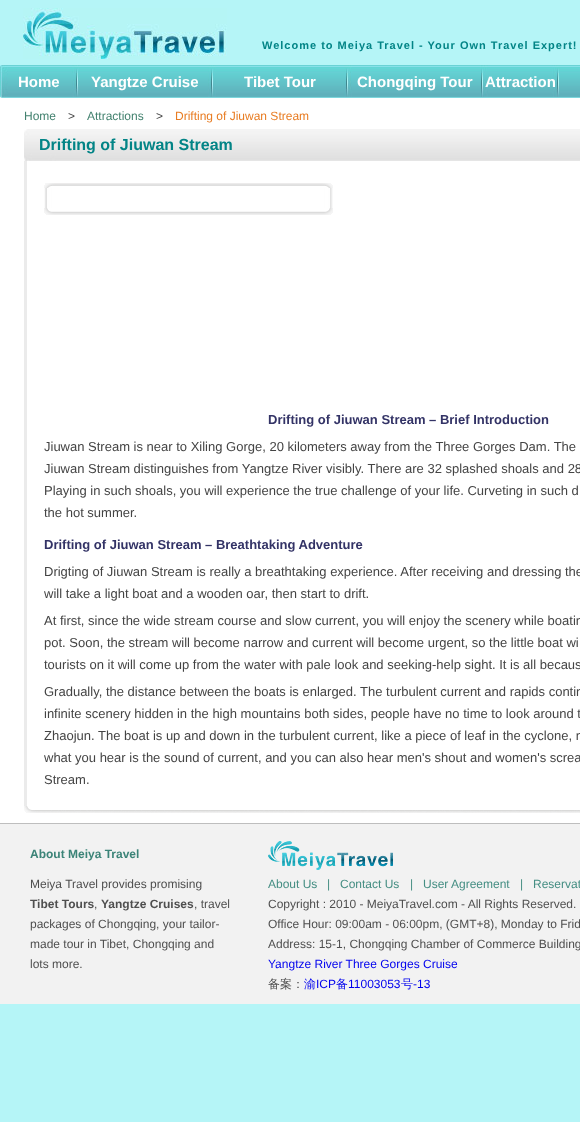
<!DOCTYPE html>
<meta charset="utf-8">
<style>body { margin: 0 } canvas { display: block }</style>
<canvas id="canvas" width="580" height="1122"></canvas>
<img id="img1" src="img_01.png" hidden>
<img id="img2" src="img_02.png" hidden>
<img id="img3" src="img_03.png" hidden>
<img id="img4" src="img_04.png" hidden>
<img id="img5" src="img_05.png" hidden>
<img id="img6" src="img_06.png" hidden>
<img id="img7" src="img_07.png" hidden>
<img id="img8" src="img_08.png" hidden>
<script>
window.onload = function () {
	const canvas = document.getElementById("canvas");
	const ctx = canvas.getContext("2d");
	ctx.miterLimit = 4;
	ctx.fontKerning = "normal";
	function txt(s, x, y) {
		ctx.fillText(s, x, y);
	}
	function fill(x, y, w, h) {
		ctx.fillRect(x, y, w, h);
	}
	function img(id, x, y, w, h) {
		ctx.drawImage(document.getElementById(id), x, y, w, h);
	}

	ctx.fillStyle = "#B5F5F7";
	fill(0, 0, 580, 1122);
	img("img1", 23, 8, 204, 51);
	img("img2", 0, 65, 580, 33);
	ctx.fillStyle = "#FFFFFF";
	fill(0, 98, 580, 725);
	img("img3", 24, 129, 556, 32);
	ctx.fillStyle = "#EBEBEB";
	fill(24, 161, 3, 645);
	img("img4", 44, 183, 289, 5);
	img("img5", 44, 188, 289, 20);
	img("img6", 44, 208, 289, 7);
	img("img7", 24, 806, 556, 7);
	ctx.fillStyle = "#F2F2F2";
	fill(0, 824, 580, 180);
	ctx.fillStyle = "#BEBEBE";
	fill(0, 823, 580, 1);
	img("img8", 268, 841, 125, 29);
	ctx.letterSpacing = "1px";
	ctx.font = "bold 11px Liberation Sans";
	ctx.fillStyle = "#028486";
	txt("Welcome to Meiya Travel - Your Own Travel Expert!", 262, 49);
	ctx.letterSpacing = "0px";
	ctx.font = "bold 15px Liberation Sans";
	ctx.fillStyle = "#FFFFFF";
	txt("Home", 18, 87);
	txt("Yangtze Cruise", 91, 87);
	txt("Tibet Tour", 244, 87);
	txt("Chongqing Tour", 357, 87);
	txt("Attraction", 485, 87);
	ctx.font = "12px Liberation Sans";
	ctx.fillStyle = "#43826F";
	txt("Home", 24, 120);
	ctx.fillStyle = "#444444";
	txt(">", 68, 120);
	ctx.fillStyle = "#43826F";
	txt("Attractions", 87, 120);
	ctx.fillStyle = "#444444";
	txt(">", 156, 120);
	ctx.fillStyle = "#E87C22";
	txt("Drifting of Jiuwan Stream", 175, 120);
	ctx.font = "bold 16px Liberation Sans";
	ctx.fillStyle = "#028486";
	txt("Drifting of Jiuwan Stream", 39, 150);
	ctx.font = "bold 13px Liberation Sans";
	ctx.fillStyle = "#333366";
	txt("Drifting of Jiuwan Stream – Brief Introduction", 268, 424);
	ctx.font = "13px Liberation Sans";
	ctx.fillStyle = "#444444";
	txt("Jiuwan Stream is near to Xiling Gorge, 20 kilometers away from the Three Gorges Dam. The", 44, 451);
	txt("Jiuwan Stream distinguishes from Yangtze River visibly. There are 32 splashed shoals and 28", 44, 473);
	txt("Playing in such shoals, you will experience the true challenge of your life. Curveting in such d", 44, 495);
	txt("the hot summer.", 44, 517);
	ctx.font = "bold 13px Liberation Sans";
	ctx.fillStyle = "#333366";
	txt("Drifting of Jiuwan Stream – Breathtaking Adventure", 44, 549);
	ctx.font = "13px Liberation Sans";
	ctx.fillStyle = "#444444";
	txt("Drigting of Jiuwan Stream is really a breathtaking experience. After receiving and dressing the", 44, 576);
	txt("will take a light boat and a wooden oar, then start to drift.", 44, 598);
	txt("At first, since the wide stream course and slow current, you will enjoy the scenery while boatin", 44, 625);
	txt("pot. Soon, the stream will become narrow and current will become urgent, so the little boat wi", 44, 647);
	txt("tourists on it will come up from the water with pale look and seeking-help sight. It is all becaus", 44, 669);
	txt("Gradually, the distance between the boats is enlarged. The turbulent current and rapids contin", 44, 696);
	txt("infinite scenery hidden in the high mountains both sides, people have no time to look around t", 44, 718);
	txt("Zhaojun. The boat is up and down in the turbulent current, like a piece of leaf in the cyclone, n", 44, 740);
	txt("what you hear is the sound of current, and you can also hear men's shout and women's screa", 44, 762);
	txt("Stream.", 44, 784);
	ctx.font = "bold 12px Liberation Sans";
	ctx.fillStyle = "#3C8478";
	txt("About Meiya Travel", 30, 858);
	ctx.font = "12px Liberation Sans";
	ctx.fillStyle = "#4F4F4F";
	txt("Meiya Travel provides promising", 30, 888);
	ctx.font = "bold 12px Liberation Sans";
	txt("Tibet Tours", 30, 908);
	ctx.font = "12px Liberation Sans";
	txt(",", 94, 908);
	ctx.font = "bold 12px Liberation Sans";
	txt("Yangtze Cruises", 101, 908);
	ctx.font = "12px Liberation Sans";
	txt(", travel", 194, 908);
	txt("packages of Chongqing, your tailor-", 30, 928);
	txt("made tour in Tibet, Chongqing and", 30, 948);
	txt("lots more.", 30, 968);
	ctx.fillStyle = "#458E83";
	txt("About Us", 268, 888);
	txt("|", 327, 888);
	txt("Contact Us", 340, 888);
	txt("|", 410, 888);
	txt("User Agreement", 423, 888);
	txt("|", 520, 888);
	txt("Reservat", 533, 888);
	ctx.fillStyle = "#4F4F4F";
	txt("Copyright : 2010 - MeiyaTravel.com - All Rights Reserved.", 268, 908);
	txt("Office Hour: 09:00am - 06:00pm, (GMT+8), Monday to Frid", 268, 928);
	txt("Address: 15-1, Chongqing Chamber of Commerce Building", 268, 948);
	ctx.fillStyle = "#0000EE";
	txt("Yangtze River Three Gorges Cruise", 268, 968);
	ctx.font = "500 12px WenQuanYi Zen Hei";
	ctx.fillStyle = "#4F4F4F";
	txt("备案：", 268, 988);
	ctx.fillStyle = "#0000EE";
	txt("渝", 304, 988);
	ctx.font = "12px Liberation Sans";
	txt("ICP", 316, 988);
	ctx.font = "500 12px WenQuanYi Zen Hei";
	txt("备", 336, 988);
	ctx.font = "12px Liberation Sans";
	txt("11003053", 348, 988);
	ctx.font = "500 12px WenQuanYi Zen Hei";
	txt("号", 401, 988);
	ctx.font = "12px Liberation Sans";
	txt("-13", 413, 988);
};
</script>
